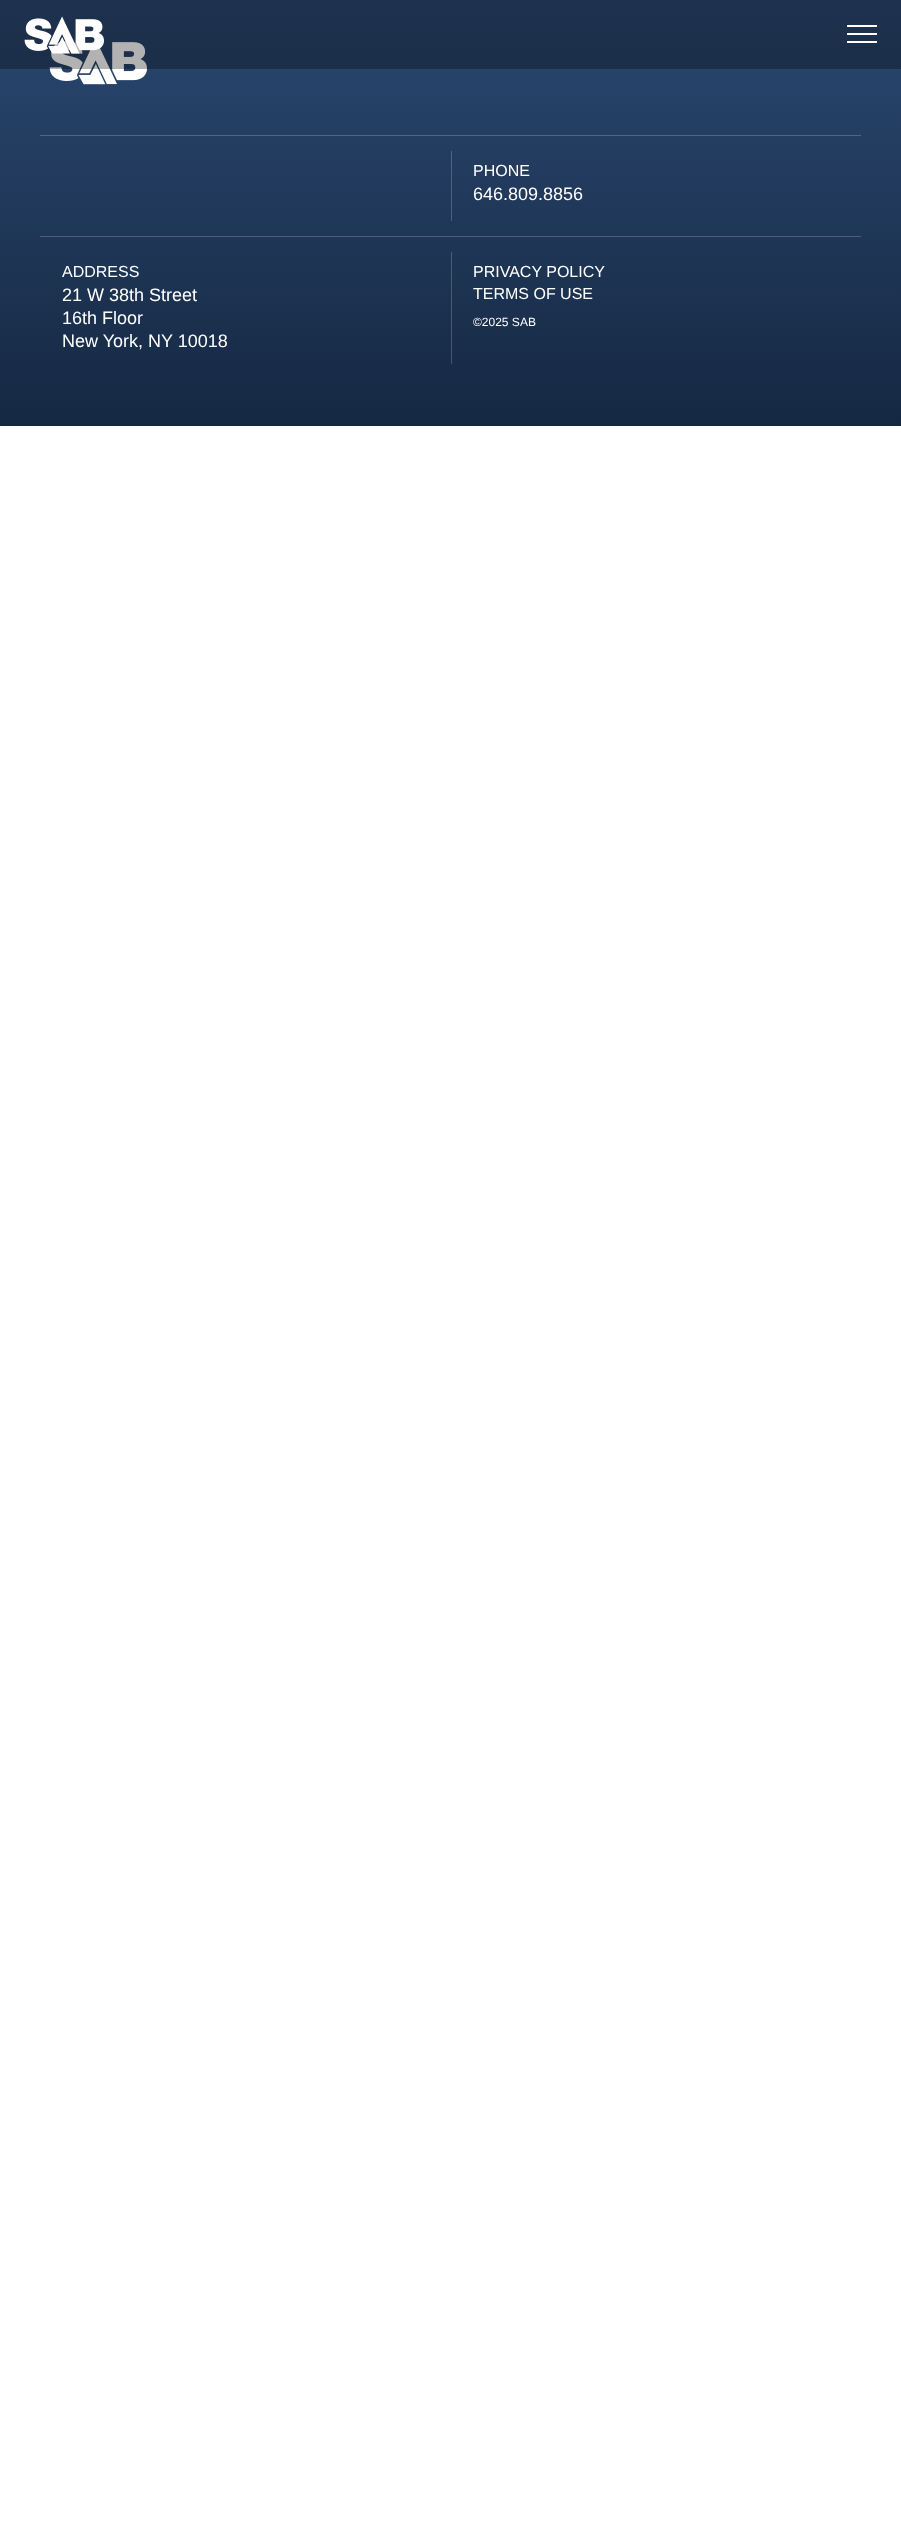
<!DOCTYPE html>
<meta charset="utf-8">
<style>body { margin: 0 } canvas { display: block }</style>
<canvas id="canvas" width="901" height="2526"></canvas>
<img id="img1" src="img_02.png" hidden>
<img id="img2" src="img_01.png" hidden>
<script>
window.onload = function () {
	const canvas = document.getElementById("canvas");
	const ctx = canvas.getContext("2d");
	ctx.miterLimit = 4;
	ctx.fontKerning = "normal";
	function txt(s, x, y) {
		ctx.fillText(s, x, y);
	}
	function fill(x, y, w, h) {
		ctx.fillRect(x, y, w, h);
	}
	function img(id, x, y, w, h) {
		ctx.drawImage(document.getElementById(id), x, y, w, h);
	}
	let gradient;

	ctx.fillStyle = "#FFFFFF";
	fill(0, 0, 901, 2526);
	gradient = ctx.createLinearGradient(451, 0, 451, 426);
	gradient.addColorStop(0, "#2B4871");
	gradient.addColorStop(1, "#152842");
	ctx.fillStyle = gradient;
	fill(0, 0, 901, 426);
	img("img1", 49, 40, 98, 45);
	ctx.fillStyle = "rgba(0, 0, 0, 0.3)";
	fill(0, 0, 901, 69);
	img("img2", 24, 16, 80, 38);
	ctx.fillStyle = "#FFFFFF";
	fill(847, 25, 30, 2);
	fill(847, 33, 30, 2);
	fill(847, 41, 30, 2);
	gradient = ctx.createLinearGradient(451, 0, 451, 426);
	gradient.addColorStop(0, "#556D8D");
	gradient.addColorStop(1, "#445368");
	ctx.fillStyle = gradient;
	fill(451, 252, 1, 112);
	fill(451, 151, 1, 70);
	ctx.fillStyle = "#506581";
	fill(40, 135, 821, 1);
	ctx.fillStyle = "#4C5E79";
	fill(40, 236, 821, 1);
	ctx.font = "16px Liberation Sans";
	ctx.fillStyle = "#FFFFFF";
	txt("PHONE", 473, 176);
	ctx.font = "18px Liberation Sans";
	txt("646.809.8856", 473, 200);
	ctx.font = "16px Liberation Sans";
	txt("ADDRESS", 62, 277);
	ctx.font = "18px Liberation Sans";
	txt("21 W 38th Street", 62, 301);
	txt("16th Floor", 62, 324);
	txt("New York, NY 10018", 62, 347);
	ctx.font = "16px Liberation Sans";
	txt("PRIVACY POLICY", 473, 277);
	txt("TERMS OF USE", 473, 299);
	ctx.font = "12px Liberation Sans";
	txt("©2025 SAB", 473, 326);
};
</script>
